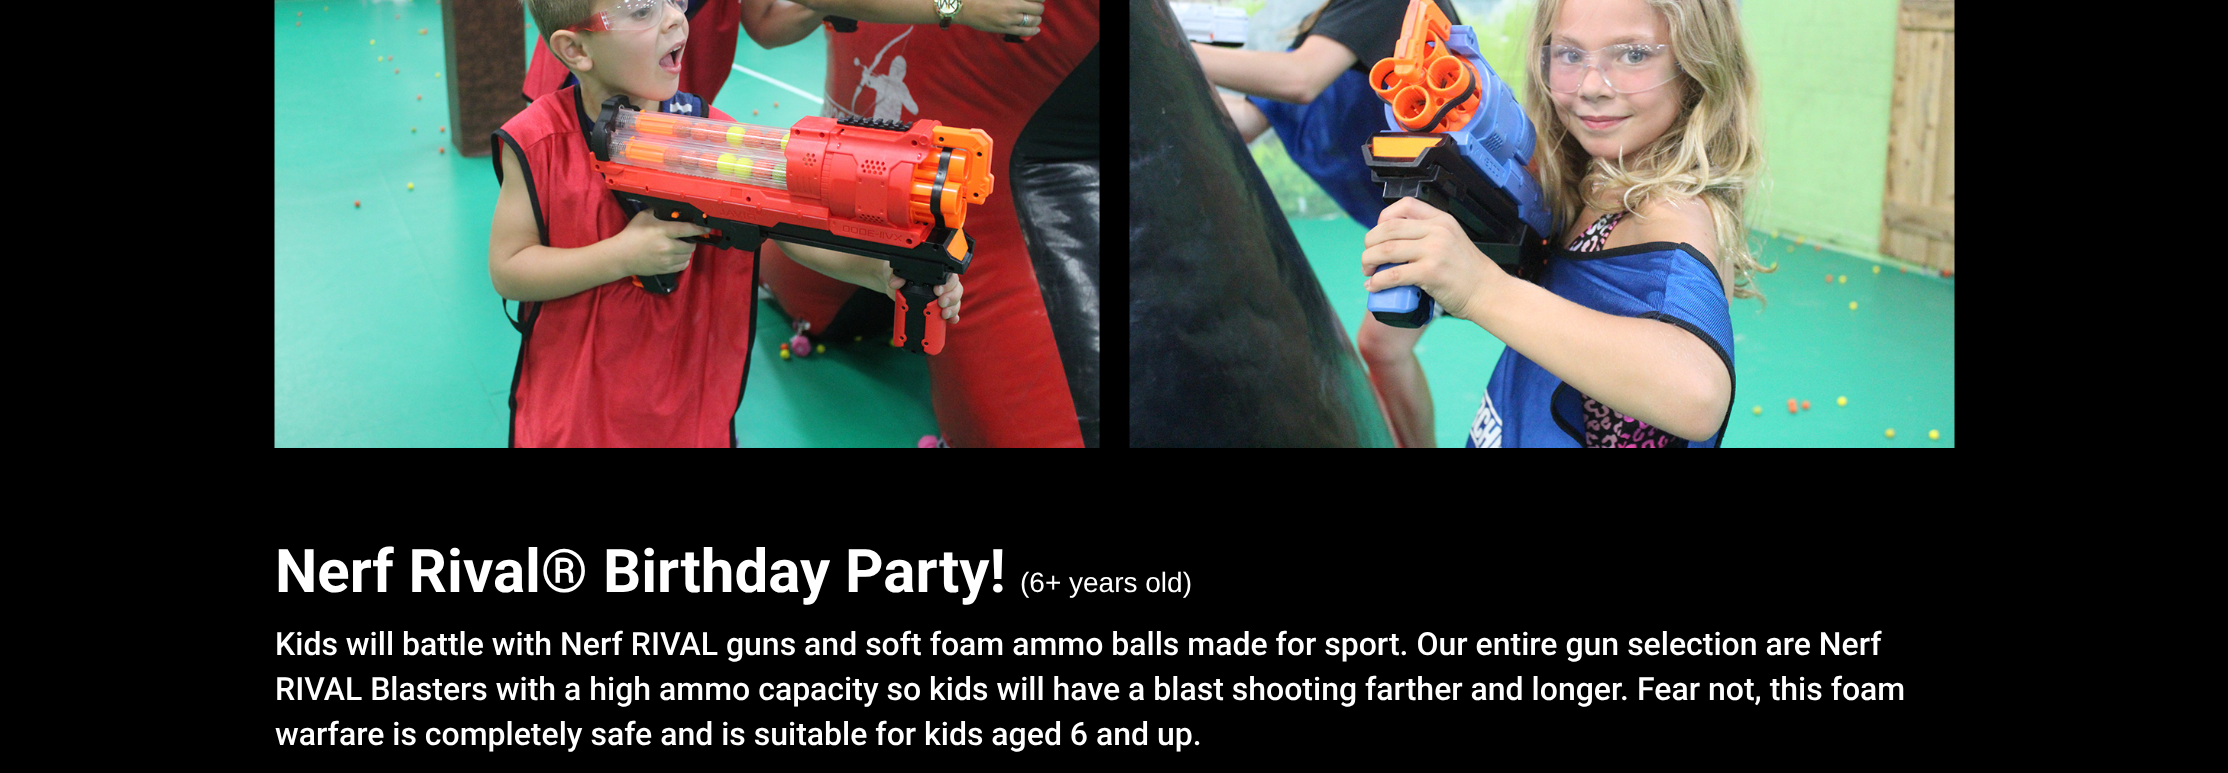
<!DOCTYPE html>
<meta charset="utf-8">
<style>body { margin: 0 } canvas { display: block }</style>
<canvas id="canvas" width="2228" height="773"></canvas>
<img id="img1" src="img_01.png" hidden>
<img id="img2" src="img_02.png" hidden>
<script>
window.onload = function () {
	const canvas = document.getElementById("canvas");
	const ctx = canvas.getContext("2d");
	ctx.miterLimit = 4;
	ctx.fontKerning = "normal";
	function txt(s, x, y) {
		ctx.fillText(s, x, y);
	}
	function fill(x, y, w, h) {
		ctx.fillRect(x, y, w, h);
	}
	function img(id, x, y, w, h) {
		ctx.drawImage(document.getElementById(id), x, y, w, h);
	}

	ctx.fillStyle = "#000000";
	fill(0, 0, 2228, 773);
	img("img1", 274, 0, 826, 448);
	img("img2", 1129, 0, 826, 448);
	ctx.font = "bold 60px Roboto";
	ctx.fillStyle = "#FFFFFF";
	txt("Nerf Rival® Birthday Party!", 275, 592);
	ctx.font = "28px Liberation Sans";
	txt("(6+ years old)", 1020, 592);
	ctx.font = "500 32px Roboto";
	txt("Kids will battle with Nerf RIVAL guns and soft foam ammo balls made for sport. Our entire gun selection are Nerf", 275, 655);
	txt("RIVAL Blasters with a high ammo capacity so kids will have a blast shooting farther and longer. Fear not, this foam", 275, 700);
	txt("warfare is completely safe and is suitable for kids aged 6 and up.", 275, 745);
};
</script>
